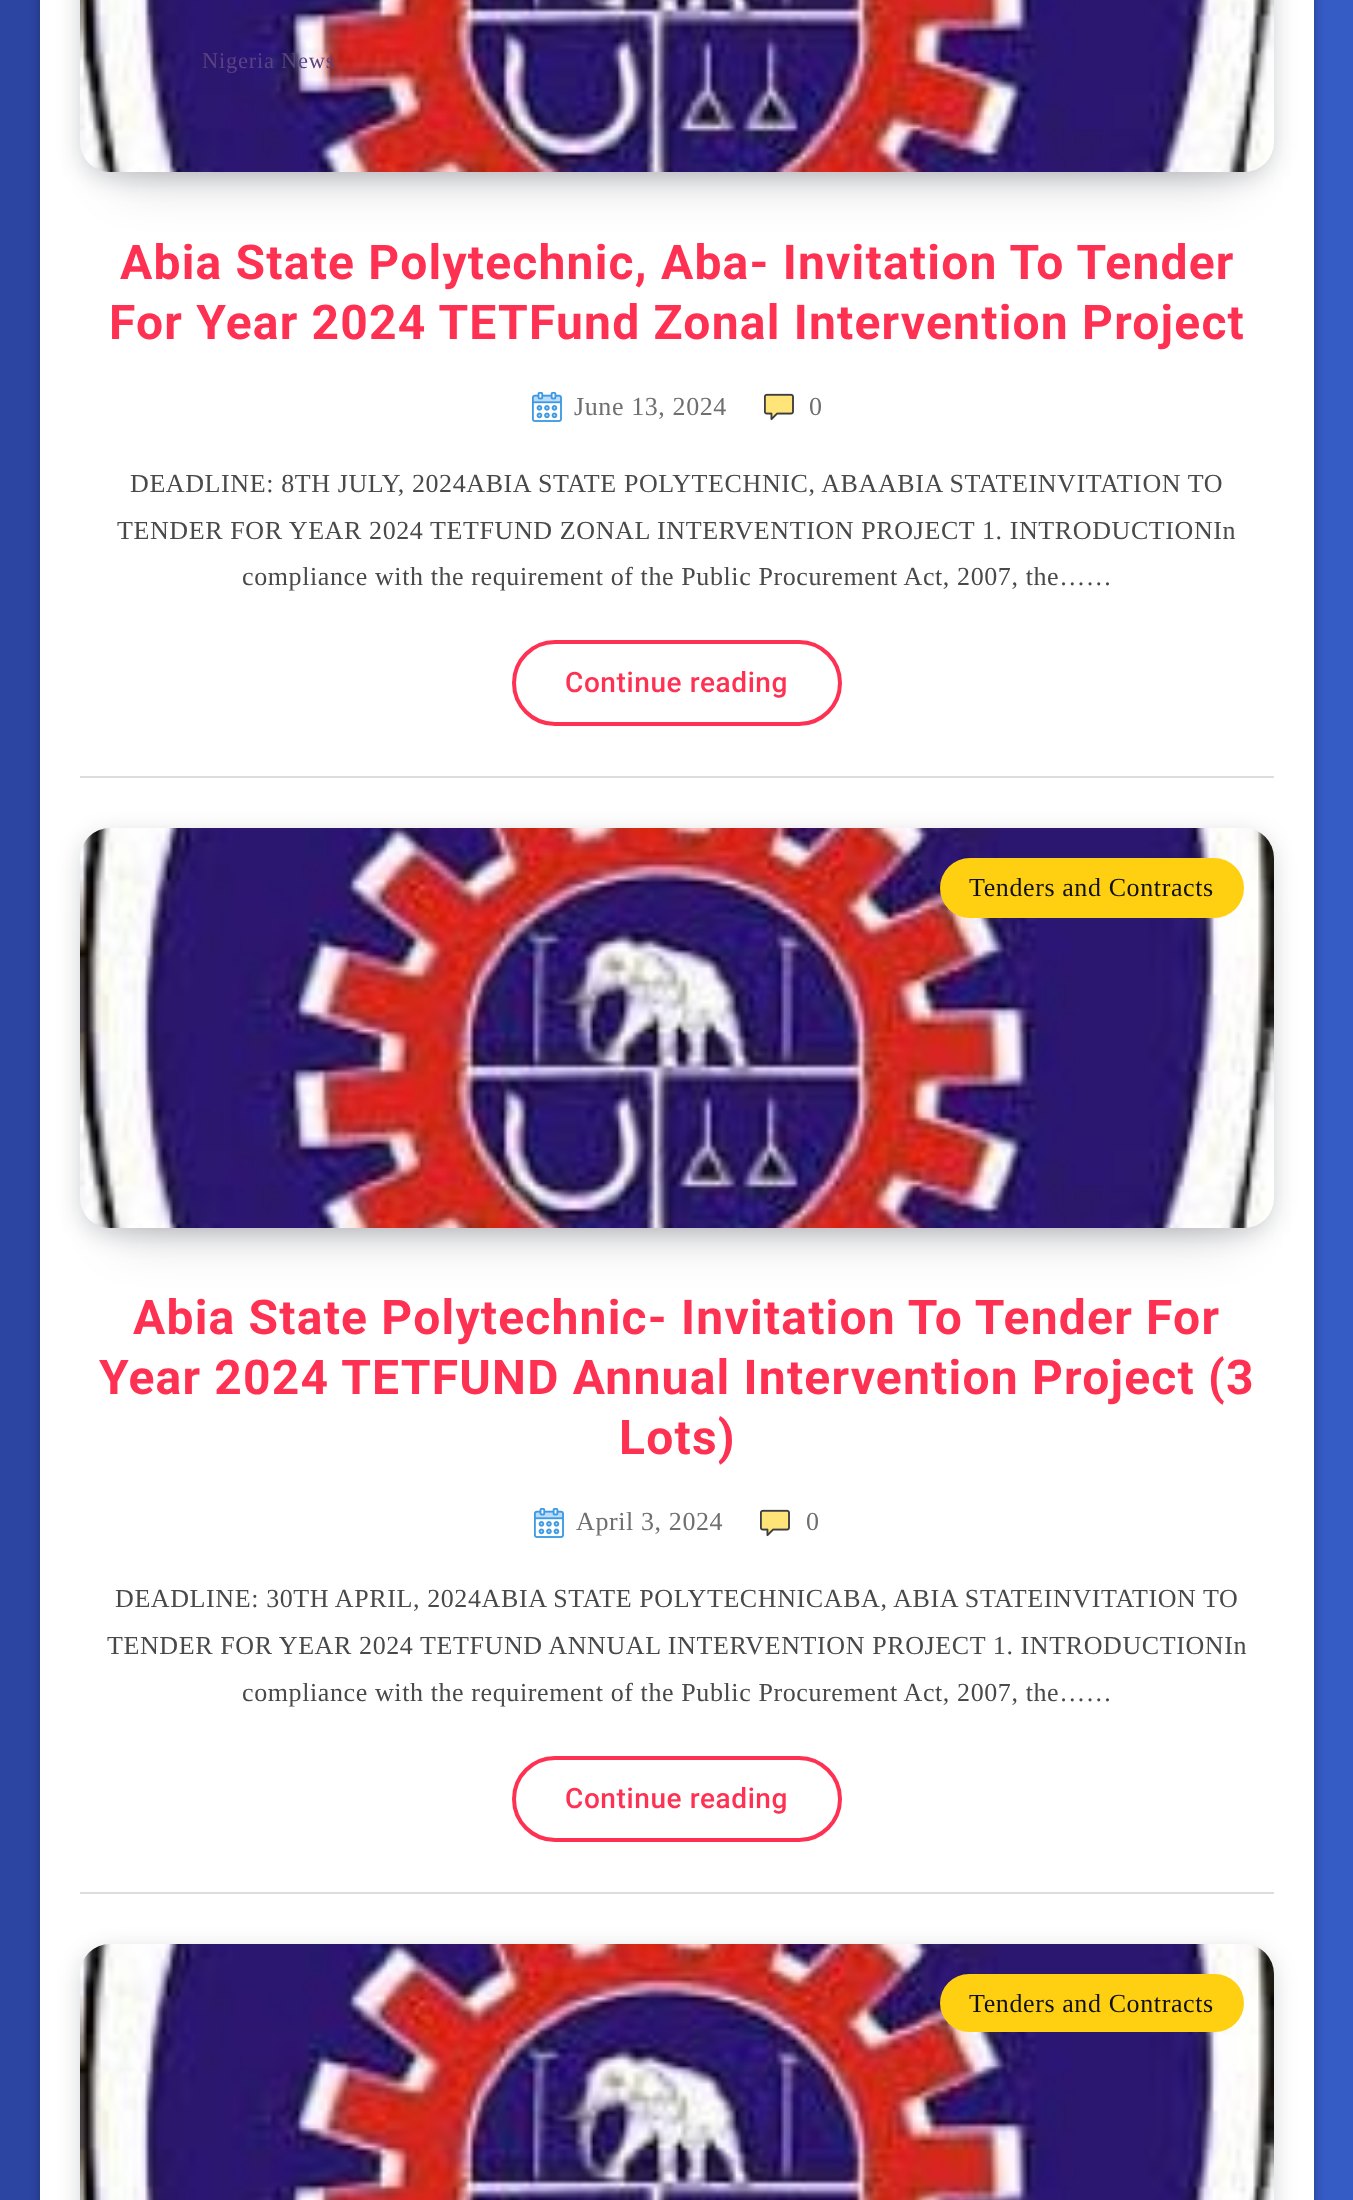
<!DOCTYPE html>
<meta charset="utf-8">
<style>body { margin: 0 } canvas { display: block }</style>
<canvas id="canvas" width="1353" height="2200"></canvas>
<img id="img1" src="img_01.png" hidden>
<img id="img2" src="img_02.png" hidden>
<img id="img3" src="img_03.png" hidden>
<img id="img4" src="img_04.png" hidden>
<img id="img5" src="img_05.png" hidden>
<script>
window.onload = function () {
	const canvas = document.getElementById("canvas");
	const ctx = canvas.getContext("2d");
	ctx.miterLimit = 4;
	ctx.fontKerning = "normal";
	function txt(s, x, y) {
		ctx.fillText(s, x, y);
	}
	function fill(x, y, w, h) {
		ctx.fillRect(x, y, w, h);
	}
	function round(x, y, w, h, r) {
		ctx.beginPath();
		ctx.roundRect(x, y, w, h, r);
		ctx.fill();
	}
	function img(id, x, y, w, h) {
		ctx.drawImage(document.getElementById(id), x, y, w, h);
	}
	let gradient;

	ctx.fillStyle = "#FFFFFF";
	fill(0, 0, 1353, 2200);
	gradient = ctx.createLinearGradient(0, -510, 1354, -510);
	gradient.addColorStop(0.3, "#2C45A3");
	gradient.addColorStop(1, "#355BC5");
	ctx.fillStyle = gradient;
	fill(0, 0, 1353, 2200);
	ctx.fillStyle = "rgba(0, 0, 0, 0.3)";
	ctx.filter = "blur(5px)";
	ctx.beginPath();
	ctx.roundRect(40, -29, 1274, 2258, 14);
	ctx.fill();
	ctx.filter = "none";
	ctx.fillStyle = "#FFFFFF";
	fill(40, 0, 1274, 2200);
	ctx.fillStyle = "#DDDDDD";
	fill(80, 776, 1194, 2);
	ctx.fillStyle = "rgba(7, 10, 25, 0.2)";
	ctx.filter = "blur(27px)";
	ctx.beginPath();
	ctx.rect(120, -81, 1114, 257);
	ctx.fill();
	ctx.filter = "none";
	ctx.filter = "blur(12px)";
	ctx.beginPath();
	ctx.roundRect(82, -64, 1190, 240, 28);
	ctx.fill();
	ctx.filter = "none";
	img("img1", 80, 0, 1194, 172);
	img("img2", 532, 392, 30, 30);
	img("img3", 764, 393, 30, 28);
	ctx.beginPath();
	ctx.roundRect(514, 642, 326, 82, 41);
	ctx.strokeStyle = "#FF3152";
	ctx.lineWidth = 4;
	ctx.stroke();
	ctx.fillStyle = "#DDDDDD";
	fill(80, 1892, 1194, 2);
	ctx.fillStyle = "rgba(7, 10, 25, 0.2)";
	ctx.filter = "blur(27px)";
	ctx.beginPath();
	ctx.rect(120, 912, 1114, 320);
	ctx.fill();
	ctx.filter = "none";
	ctx.filter = "blur(12px)";
	ctx.beginPath();
	ctx.roundRect(82, 836, 1190, 396, 28);
	ctx.fill();
	ctx.filter = "none";
	img("img4", 80, 828, 1194, 400);
	ctx.fillStyle = "#FFD012";
	round(940, 858, 304, 60, 30);
	img("img2", 534, 1508, 30, 30);
	img("img3", 760, 1509, 30, 28);
	ctx.beginPath();
	ctx.roundRect(514, 1758, 326, 82, 41);
	ctx.stroke();
	ctx.fillStyle = "rgba(7, 10, 25, 0.2)";
	ctx.filter = "blur(12px)";
	ctx.beginPath();
	ctx.roundRect(82, 1952, 1190, 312, 28);
	ctx.fill();
	ctx.filter = "none";
	img("img5", 80, 1944, 1194, 256);
	ctx.fillStyle = "#FFD012";
	round(940, 1974, 304, 58, 29);
	ctx.letterSpacing = "0.75px";
	ctx.font = "22.5px Liberation Serif";
	ctx.fillStyle = "#5A4382";
	txt("Nigeria News", 202, 68);
	ctx.letterSpacing = "1.2px";
	ctx.font = "bold 48px Roboto";
	ctx.fillStyle = "#FF3152";
	txt("Abia State Polytechnic, Aba- Invitation To Tender", 120, 279);
	txt("For Year 2024 TETFund Zonal Intervention Project", 109, 339);
	ctx.letterSpacing = "0.6px";
	ctx.font = "26px Liberation Serif";
	ctx.fillStyle = "#6F6F6F";
	txt("June 13, 2024", 574, 415);
	txt("0", 809, 415);
	ctx.fillStyle = "#494949";
	txt("DEADLINE: 8TH JULY, 2024ABIA STATE POLYTECHNIC, ABAABIA STATEINVITATION TO", 130, 492);
	txt("TENDER FOR YEAR 2024 TETFUND ZONAL INTERVENTION PROJECT 1. INTRODUCTIONIn", 117, 539);
	txt("compliance with the requirement of the Public Procurement Act, 2007, the……", 242, 585);
	ctx.font = "500 28px Roboto";
	ctx.fillStyle = "#FF3152";
	txt("Continue reading", 565, 692);
	ctx.font = "26px Liberation Serif";
	ctx.fillStyle = "#111111";
	txt("Tenders and Contracts", 969, 896);
	ctx.letterSpacing = "1.2px";
	ctx.font = "bold 48px Roboto";
	ctx.fillStyle = "#FF3152";
	txt("Abia State Polytechnic- Invitation To Tender For", 133, 1334);
	txt("Year 2024 TETFUND Annual Intervention Project (3", 99, 1394);
	txt("Lots)", 619, 1454);
	ctx.letterSpacing = "0.6px";
	ctx.font = "26px Liberation Serif";
	ctx.fillStyle = "#6F6F6F";
	txt("April 3, 2024", 576, 1530);
	txt("0", 806, 1530);
	ctx.fillStyle = "#494949";
	txt("DEADLINE: 30TH APRIL, 2024ABIA STATE POLYTECHNICABA, ABIA STATEINVITATION TO", 115, 1607);
	txt("TENDER FOR YEAR 2024 TETFUND ANNUAL INTERVENTION PROJECT 1. INTRODUCTIONIn", 107, 1654);
	txt("compliance with the requirement of the Public Procurement Act, 2007, the……", 242, 1701);
	ctx.font = "500 28px Roboto";
	ctx.fillStyle = "#FF3152";
	txt("Continue reading", 565, 1808);
	ctx.font = "26px Liberation Serif";
	ctx.fillStyle = "#111111";
	txt("Tenders and Contracts", 969, 2012);
};
</script>
